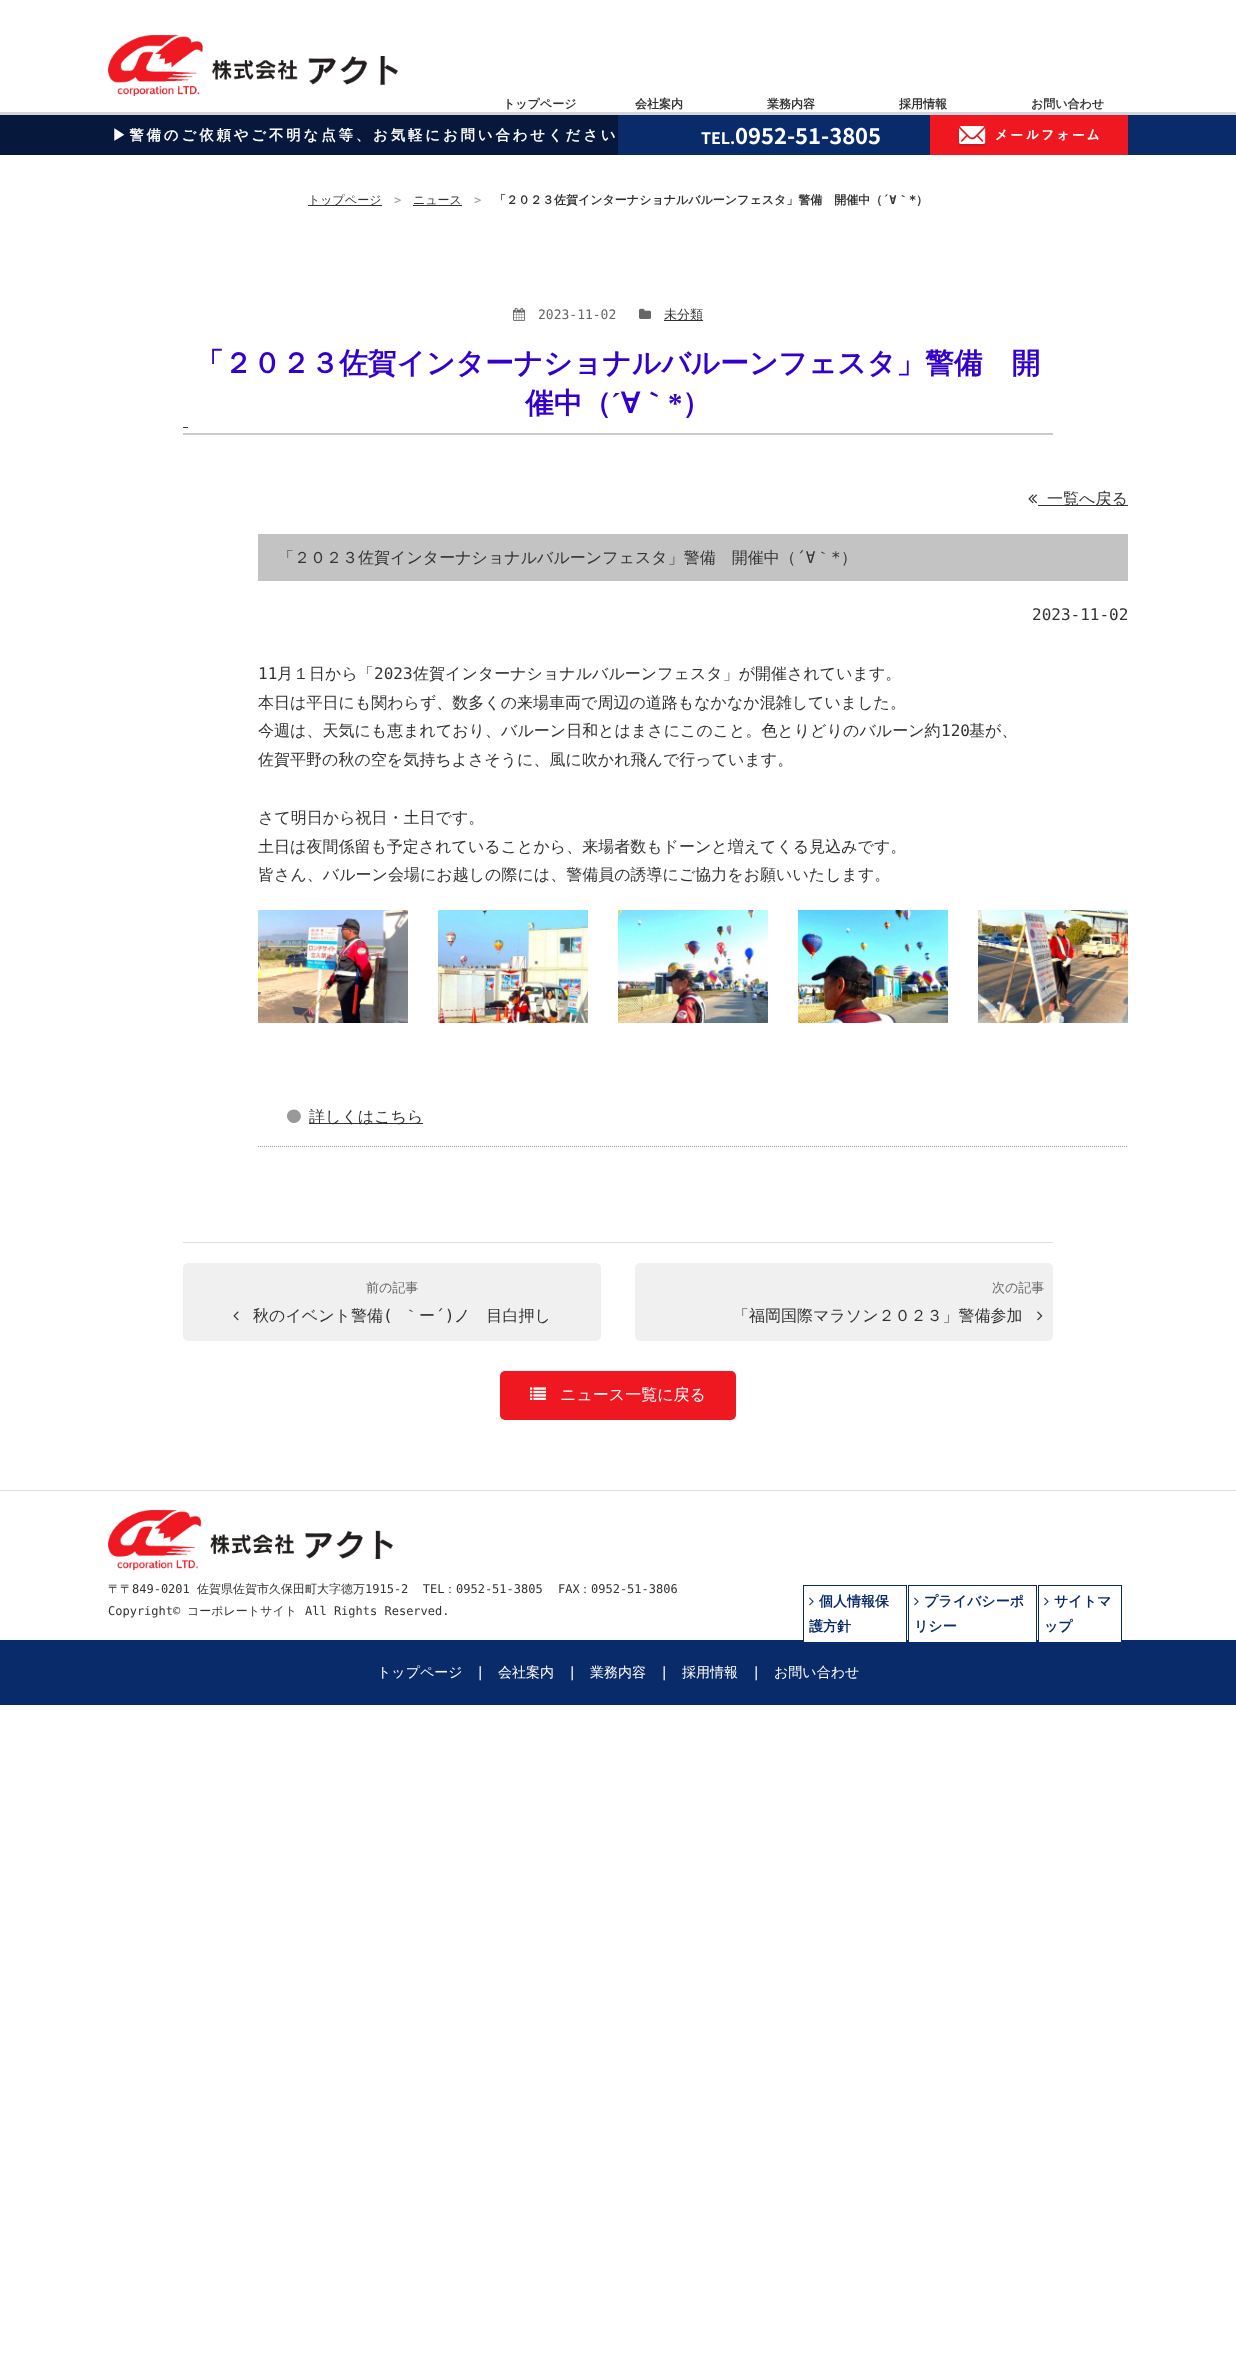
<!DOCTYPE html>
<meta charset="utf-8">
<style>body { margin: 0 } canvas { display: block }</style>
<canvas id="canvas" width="1236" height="2359"></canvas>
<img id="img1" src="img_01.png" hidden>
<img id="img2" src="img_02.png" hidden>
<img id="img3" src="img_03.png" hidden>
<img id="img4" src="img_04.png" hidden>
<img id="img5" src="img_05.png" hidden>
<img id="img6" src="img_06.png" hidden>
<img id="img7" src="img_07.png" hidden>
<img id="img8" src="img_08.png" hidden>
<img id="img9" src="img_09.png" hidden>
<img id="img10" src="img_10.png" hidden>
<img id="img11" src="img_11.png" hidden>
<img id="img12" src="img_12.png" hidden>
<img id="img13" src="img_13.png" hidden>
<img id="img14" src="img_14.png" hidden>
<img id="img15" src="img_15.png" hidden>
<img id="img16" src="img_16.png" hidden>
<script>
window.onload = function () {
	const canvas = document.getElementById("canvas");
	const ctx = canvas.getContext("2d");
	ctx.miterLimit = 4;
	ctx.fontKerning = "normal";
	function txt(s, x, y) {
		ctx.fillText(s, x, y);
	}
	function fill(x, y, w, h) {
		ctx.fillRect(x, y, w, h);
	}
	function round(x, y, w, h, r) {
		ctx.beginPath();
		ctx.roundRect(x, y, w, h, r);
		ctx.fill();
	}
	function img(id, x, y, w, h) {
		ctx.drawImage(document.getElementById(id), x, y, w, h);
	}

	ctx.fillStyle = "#FFFFFF";
	fill(0, 0, 1236, 2359);
	img("img1", 0, 112, 1236, 43);
	img("img2", 108, 35, 290, 61);
	img("img3", 930, 115, 198, 40);
	ctx.fillStyle = "#333333";
	fill(308, 205, 74, 1);
	fill(413, 205, 49, 1);
	img("img4", 513, 307, 13, 14);
	img("img5", 639, 308, 13, 11);
	fill(664, 320, 39, 1);
	ctx.fillStyle = "#CCCCCC";
	fill(183, 433, 870, 2);
	ctx.fillStyle = "#333333";
	fill(183, 427, 5, 1);
	img("img6", 1028, 494, 9, 10);
	fill(1038, 505, 90, 1);
	ctx.fillStyle = "#C3C3C3";
	fill(258, 534, 870, 47);
	img("img7", 258, 910, 150, 113);
	img("img8", 438, 910, 150, 113);
	img("img9", 618, 910, 150, 113);
	img("img10", 798, 910, 150, 113);
	img("img11", 978, 910, 150, 113);
	ctx.beginPath();
	ctx.moveTo(258, 1146.5);
	ctx.lineTo(1128, 1146.5);
	ctx.strokeStyle = "#999999";
	ctx.setLineDash([1, 1]);
	ctx.stroke();
	ctx.fillStyle = "#999999";
	ctx.beginPath();
	ctx.moveTo(300, 1113);
	ctx.bezierCurveTo(304.5, 1120.5, 292.5, 1127.5, 288, 1119.5);
	ctx.bezierCurveTo(283.5, 1112, 295, 1105, 300, 1113);
	ctx.closePath();
	ctx.fill();
	ctx.fillStyle = "#333333";
	fill(309, 1123, 114, 1);
	ctx.fillStyle = "#DDDDDD";
	fill(183, 1242, 870, 1);
	ctx.fillStyle = "#F0F0F0";
	round(183, 1263, 418, 78, 5);
	img("img12", 233, 1311, 6, 10);
	round(635, 1263, 418, 78, 5);
	img("img13", 1037, 1311, 6, 10);
	ctx.fillStyle = "#EF1821";
	round(500, 1371, 236, 49, 5);
	img("img14", 530, 1387, 16, 13);
	ctx.fillStyle = "#DDDDDD";
	fill(0, 1490, 1236, 1);
	img("img15", 108, 1510, 285, 60);
	ctx.fillStyle = "#0A2B6A";
	fill(0, 1640, 1236, 65);
	ctx.fillStyle = "#FFFFFF";
	fill(804, 1640, 102, 2);
	ctx.strokeStyle = "#0A2B6A";
	ctx.setLineDash([]);
	ctx.strokeRect(803.5, 1585.5, 103, 57);
	img("img16", 809, 1597, 5, 9);
	fill(909, 1640, 127, 2);
	ctx.strokeRect(908.5, 1585.5, 128, 57);
	img("img16", 914, 1597, 5, 9);
	fill(1039, 1640, 82, 2);
	ctx.strokeRect(1038.5, 1585.5, 83, 57);
	img("img16", 1044, 1597, 5, 9);
	ctx.font = "bold 12px WenQuanYi Zen Hei";
	ctx.fillStyle = "#333333";
	txt("トップページ", 503, 108);
	txt("会社案内", 635, 108);
	txt("業務内容", 767, 108);
	txt("採用情報", 899, 108);
	txt("お問い合わせ", 1031, 108);
	ctx.letterSpacing = "2.9px";
	ctx.font = "bold 14.4px WenQuanYi Zen Hei";
	ctx.fillStyle = "#FFFFFF";
	txt("▶︎警備のご依頼やご不明な点等、お気軽にお問い合わせください", 112, 140);
	ctx.letterSpacing = "0px";
	ctx.font = "bold 16px Noto Sans JP";
	txt("TEL.", 701, 144);
	ctx.font = "bold 22px Noto Sans JP";
	txt("0952-51-3805", 735, 144);
	ctx.font = "500 12px WenQuanYi Zen Hei";
	ctx.fillStyle = "#333333";
	txt("トップページ", 308, 204);
	ctx.font = "12px DejaVu Sans Mono";
	ctx.fillStyle = "#999999";
	txt(">", 394, 204);
	ctx.font = "500 12px WenQuanYi Zen Hei";
	ctx.fillStyle = "#333333";
	txt("ニュース", 413, 204);
	ctx.font = "12px DejaVu Sans Mono";
	ctx.fillStyle = "#999999";
	txt(">", 474, 204);
	ctx.font = "bold 12px WenQuanYi Zen Hei";
	ctx.fillStyle = "#333333";
	txt("「２０２３佐賀インターナショナルバルーンフェスタ」警備　開催中（", 494, 204);
	ctx.font = "bold 12px DejaVu Sans Mono";
	txt("´∀", 882, 204);
	ctx.font = "bold 12px WenQuanYi Zen Hei";
	txt("｀", 897, 204);
	ctx.font = "bold 12px DejaVu Sans Mono";
	txt("*", 909, 204);
	ctx.font = "bold 12px WenQuanYi Zen Hei";
	txt("）", 916, 204);
	ctx.font = "13px DejaVu Sans Mono";
	ctx.fillStyle = "#666666";
	txt("2023-11-02", 538, 319);
	ctx.font = "500 13px WenQuanYi Zen Hei";
	ctx.fillStyle = "#333333";
	txt("未分類", 664, 319);
	ctx.font = "bold 28.8px WenQuanYi Zen Hei";
	ctx.fillStyle = "#3300CC";
	txt("「２０２３佐賀インターナショナルバルーンフェスタ」警備　開", 195, 373);
	txt("催中（", 525, 413);
	ctx.font = "bold 28.8px Liberation Serif";
	txt("´", 611, 413);
	ctx.font = "bold 28.8px WenQuanYi Zen Hei";
	txt("∀｀", 621, 413);
	ctx.font = "bold 28.8px Liberation Serif";
	txt("*", 668, 413);
	ctx.font = "bold 28.8px WenQuanYi Zen Hei";
	txt("）", 682, 413);
	ctx.font = "500 16px WenQuanYi Zen Hei";
	ctx.fillStyle = "#333333";
	txt("一覧へ戻る", 1047, 504);
	txt("「２０２３佐賀インターナショナルバルーンフェスタ」警備　開催中（", 278, 563);
	ctx.font = "16px DejaVu Sans Mono";
	txt("´∀", 796, 563);
	ctx.font = "500 16px WenQuanYi Zen Hei";
	txt("｀", 815, 563);
	ctx.font = "16px DejaVu Sans Mono";
	txt("*", 831, 563);
	ctx.font = "500 16px WenQuanYi Zen Hei";
	txt("）", 841, 563);
	ctx.font = "16px DejaVu Sans Mono";
	txt("2023-11-02", 1032, 620);
	txt("11", 258, 679);
	ctx.font = "500 16px WenQuanYi Zen Hei";
	txt("月１日から「", 277, 679);
	ctx.font = "16px DejaVu Sans Mono";
	txt("2023", 374, 679);
	ctx.font = "500 16px WenQuanYi Zen Hei";
	txt("佐賀インターナショナルバルーンフェスタ」が開催されています。", 413, 679);
	txt("本日は平日にも関わらず、数多くの来場車両で周辺の道路もなかなか混雑していました。", 258, 708);
	txt("今週は、天気にも恵まれており、バルーン日和とはまさにこのこと。色とりどりのバルーン約", 258, 736);
	ctx.font = "16px DejaVu Sans Mono";
	txt("120", 941, 736);
	ctx.font = "500 16px WenQuanYi Zen Hei";
	txt("基が、", 969, 736);
	txt("佐賀平野の秋の空を気持ちよさそうに、風に吹かれ飛んで行っています。", 258, 765);
	txt("さて明日から祝日・土日です。", 258, 823);
	txt("土日は夜間係留も予定されていることから、来場者数もドーンと増えてくる見込みです。", 258, 852);
	txt("皆さん、バルーン会場にお越しの際には、警備員の誘導にご協力をお願いいたします。", 258, 880);
	txt("詳しくはこちら", 309, 1122);
	ctx.font = "500 13px WenQuanYi Zen Hei";
	ctx.fillStyle = "#666666";
	txt("前の記事", 366, 1292);
	ctx.font = "500 16px WenQuanYi Zen Hei";
	ctx.fillStyle = "#333333";
	txt("秋のイベント警備", 253, 1321);
	ctx.font = "16px DejaVu Sans Mono";
	txt("(", 383, 1321);
	ctx.font = "500 16px WenQuanYi Zen Hei";
	txt("｀ー", 403, 1321);
	ctx.font = "16px DejaVu Sans Mono";
	txt("´)", 435, 1321);
	ctx.font = "500 16px WenQuanYi Zen Hei";
	txt("ノ　目白押し", 454, 1321);
	ctx.font = "500 13px WenQuanYi Zen Hei";
	ctx.fillStyle = "#666666";
	txt("次の記事", 992, 1292);
	ctx.font = "500 16px WenQuanYi Zen Hei";
	ctx.fillStyle = "#333333";
	txt("「福岡国際マラソン２０２３」警備参加", 733, 1321);
	ctx.fillStyle = "#FFFFFF";
	txt("ニュース一覧に戻る", 560, 1400);
	ctx.font = "500 12px WenQuanYi Zen Hei";
	ctx.fillStyle = "#333333";
	txt("〒〒", 108, 1593);
	ctx.font = "12px DejaVu Sans Mono";
	txt("849-0201", 132, 1593);
	ctx.font = "500 12px WenQuanYi Zen Hei";
	txt("佐賀県佐賀市久保田町大字徳万", 197, 1593);
	ctx.font = "12px DejaVu Sans Mono";
	txt("1915-2  TEL", 365, 1593);
	ctx.font = "500 12px WenQuanYi Zen Hei";
	txt("：", 444, 1593);
	ctx.font = "12px DejaVu Sans Mono";
	txt("0952-51-3805", 456, 1593);
	txt("FAX", 558, 1593);
	ctx.font = "500 12px WenQuanYi Zen Hei";
	txt("：", 579, 1593);
	ctx.font = "12px DejaVu Sans Mono";
	txt("0952-51-3806", 591, 1593);
	txt("Copyright©", 108, 1615);
	ctx.font = "500 12px WenQuanYi Zen Hei";
	txt("コーポレートサイト", 187, 1615);
	ctx.font = "12px DejaVu Sans Mono";
	txt("All Rights Reserved.", 305, 1615);
	ctx.font = "bold 14px WenQuanYi Zen Hei";
	ctx.fillStyle = "#0A2B6A";
	txt("個人情報保", 819, 1606);
	txt("護方針", 809, 1631);
	txt("プライバシーポ", 924, 1606);
	txt("リシー", 914, 1631);
	txt("サイトマ", 1054, 1606);
	txt("ップ", 1044, 1631);
	ctx.font = "500 14px WenQuanYi Zen Hei";
	ctx.fillStyle = "#FFFFFF";
	txt("トップページ", 377, 1677);
	ctx.font = "14px DejaVu Sans Mono";
	txt("|", 476, 1677);
	ctx.font = "500 14px WenQuanYi Zen Hei";
	txt("会社案内", 498, 1677);
	ctx.font = "14px DejaVu Sans Mono";
	txt("|", 568, 1677);
	ctx.font = "500 14px WenQuanYi Zen Hei";
	txt("業務内容", 590, 1677);
	ctx.font = "14px DejaVu Sans Mono";
	txt("|", 660, 1677);
	ctx.font = "500 14px WenQuanYi Zen Hei";
	txt("採用情報", 682, 1677);
	ctx.font = "14px DejaVu Sans Mono";
	txt("|", 752, 1677);
	ctx.font = "500 14px WenQuanYi Zen Hei";
	txt("お問い合わせ", 774, 1677);
};
</script>
